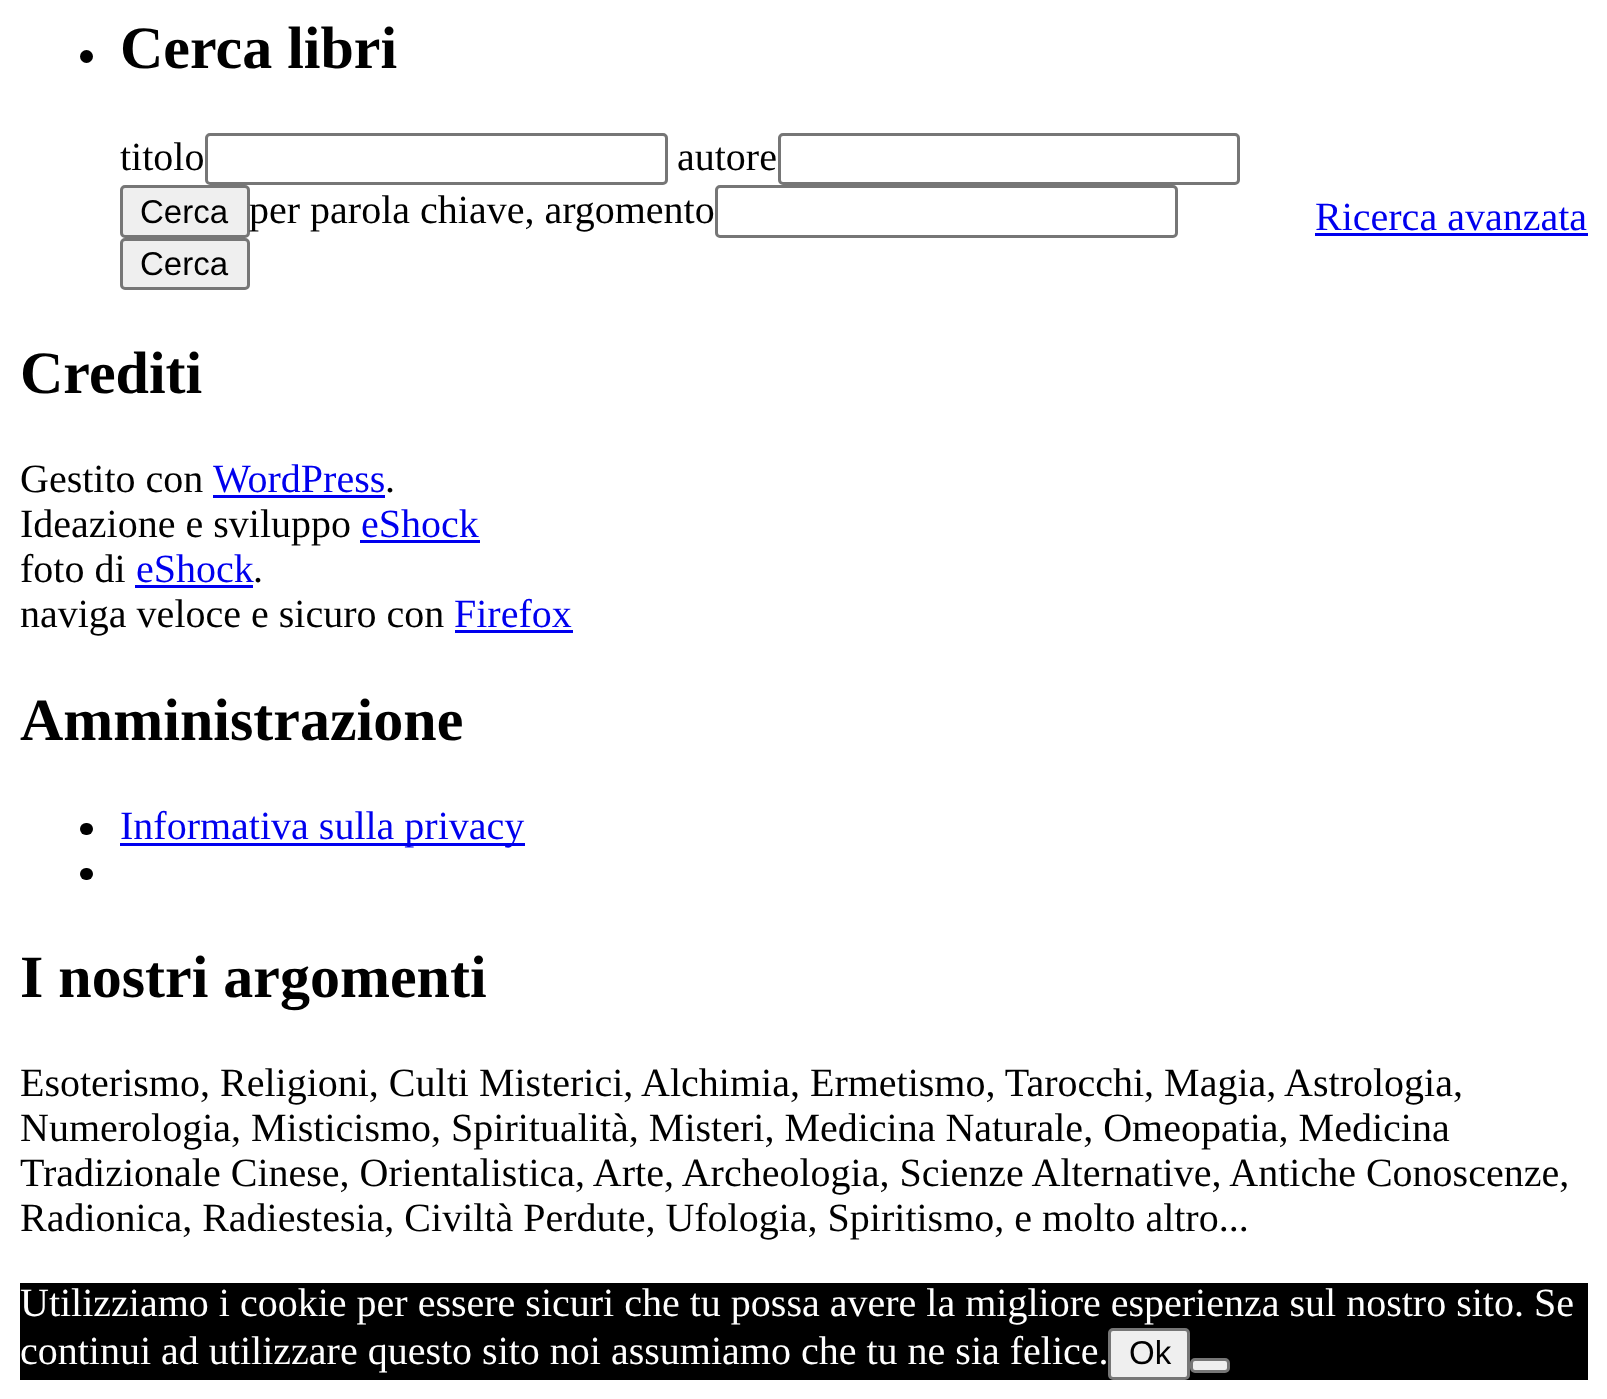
<!DOCTYPE html>
<meta charset="utf-8">
<style>body { margin: 0 } canvas { display: block }</style>
<canvas id="canvas" width="1607" height="1399"></canvas>
<script>
window.onload = function () {
	const canvas = document.getElementById("canvas");
	const ctx = canvas.getContext("2d");
	ctx.miterLimit = 4;
	ctx.fontKerning = "normal";
	function txt(s, x, y) {
		ctx.fillText(s, x, y);
	}
	function fill(x, y, w, h) {
		ctx.fillRect(x, y, w, h);
	}
	function round(x, y, w, h, r) {
		ctx.beginPath();
		ctx.roundRect(x, y, w, h, r);
		ctx.fill();
	}

	ctx.fillStyle = "#FFFFFF";
	fill(0, 0, 1607, 1399);
	ctx.fillStyle = "#000000";
	ctx.beginPath();
	ctx.arc(86.5, 56.5, 6.5, 0, Math.PI * 2);
	ctx.fill();
	ctx.beginPath();
	ctx.roundRect(206.5, 134.5, 460, 49, 3.5);
	ctx.strokeStyle = "#767676";
	ctx.lineWidth = 3;
	ctx.stroke();
	ctx.beginPath();
	ctx.roundRect(779.5, 134.5, 459, 49, 3.5);
	ctx.stroke();
	ctx.fillStyle = "#EFEFEF";
	ctx.beginPath();
	ctx.roundRect(121.5, 186.5, 127, 50, 3.5);
	ctx.fill();
	ctx.stroke();
	ctx.fillStyle = "#0000EE";
	fill(1315, 233, 273, 3);
	ctx.beginPath();
	ctx.roundRect(716.5, 186.5, 460, 50, 3.5);
	ctx.stroke();
	ctx.fillStyle = "#EFEFEF";
	ctx.beginPath();
	ctx.roundRect(121.5, 239.5, 127, 49, 3.5);
	ctx.fill();
	ctx.stroke();
	ctx.fillStyle = "#0000EE";
	fill(213, 495, 172, 3);
	fill(360, 540, 120, 3);
	fill(135, 585, 118, 3);
	fill(455, 630, 118, 3);
	ctx.fillStyle = "#000000";
	round(80, 823, 13, 12, 6);
	ctx.fillStyle = "#0000EE";
	fill(120, 843, 405, 3);
	ctx.fillStyle = "#000000";
	round(80, 868, 13, 12, 6);
	fill(20, 1283, 1568, 97);
	ctx.fillStyle = "#EFEFEF";
	ctx.beginPath();
	ctx.roundRect(1109.5, 1329.5, 79, 49, 3.5);
	ctx.fill();
	ctx.stroke();
	ctx.beginPath();
	ctx.roundRect(1191.5, 1359.5, 37, 12, 3.5);
	ctx.fill();
	ctx.stroke();
	ctx.font = "bold 60px Liberation Serif";
	ctx.fillStyle = "#000000";
	txt("Cerca libri", 120, 68);
	ctx.font = "40px Liberation Serif";
	txt("titolo", 120, 170);
	txt("autore", 677, 170);
	ctx.font = "33px Liberation Sans";
	txt("Cerca", 140, 223);
	ctx.font = "40px Liberation Serif";
	ctx.fillStyle = "#0000EE";
	txt("Ricerca avanzata", 1315, 230);
	ctx.fillStyle = "#000000";
	txt("per parola chiave, argomento", 249, 223);
	ctx.font = "33px Liberation Sans";
	txt("Cerca", 140, 275);
	ctx.font = "bold 60px Liberation Serif";
	txt("Crediti", 20, 393);
	ctx.font = "40px Liberation Serif";
	txt("Gestito con", 20, 492);
	ctx.fillStyle = "#0000EE";
	txt("WordPress", 213, 492);
	ctx.fillStyle = "#000000";
	txt(".", 385, 492);
	txt("Ideazione e sviluppo", 20, 537);
	ctx.fillStyle = "#0000EE";
	txt("eShock", 361, 537);
	ctx.fillStyle = "#000000";
	txt("foto di", 20, 582);
	ctx.fillStyle = "#0000EE";
	txt("eShock", 136, 582);
	ctx.fillStyle = "#000000";
	txt(".", 253, 582);
	txt("naviga veloce e sicuro con", 20, 627);
	ctx.fillStyle = "#0000EE";
	txt("Firefox", 454, 627);
	ctx.font = "bold 60px Liberation Serif";
	ctx.fillStyle = "#000000";
	txt("Amministrazione", 20, 740);
	ctx.font = "40px Liberation Serif";
	ctx.fillStyle = "#0000EE";
	txt("Informativa sulla privacy", 120, 839);
	ctx.font = "bold 60px Liberation Serif";
	ctx.fillStyle = "#000000";
	txt("I nostri argomenti", 20, 997);
	ctx.font = "40px Liberation Serif";
	txt("Esoterismo, Religioni, Culti Misterici, Alchimia, Ermetismo, Tarocchi, Magia, Astrologia,", 20, 1096);
	txt("Numerologia, Misticismo, Spiritualità, Misteri, Medicina Naturale, Omeopatia, Medicina", 20, 1141);
	txt("Tradizionale Cinese, Orientalistica, Arte, Archeologia, Scienze Alternative, Antiche Conoscenze,", 20, 1186);
	txt("Radionica, Radiestesia, Civiltà Perdute, Ufologia, Spiritismo, e molto altro...", 20, 1231);
	ctx.fillStyle = "#FFFFFF";
	txt("Utilizziamo i cookie per essere sicuri che tu possa avere la migliore esperienza sul nostro sito. Se", 20, 1316);
	txt("continui ad utilizzare questo sito noi assumiamo che tu ne sia felice.", 20, 1364);
	ctx.font = "33px Liberation Sans";
	ctx.fillStyle = "#000000";
	txt("Ok", 1129, 1364);
};
</script>
